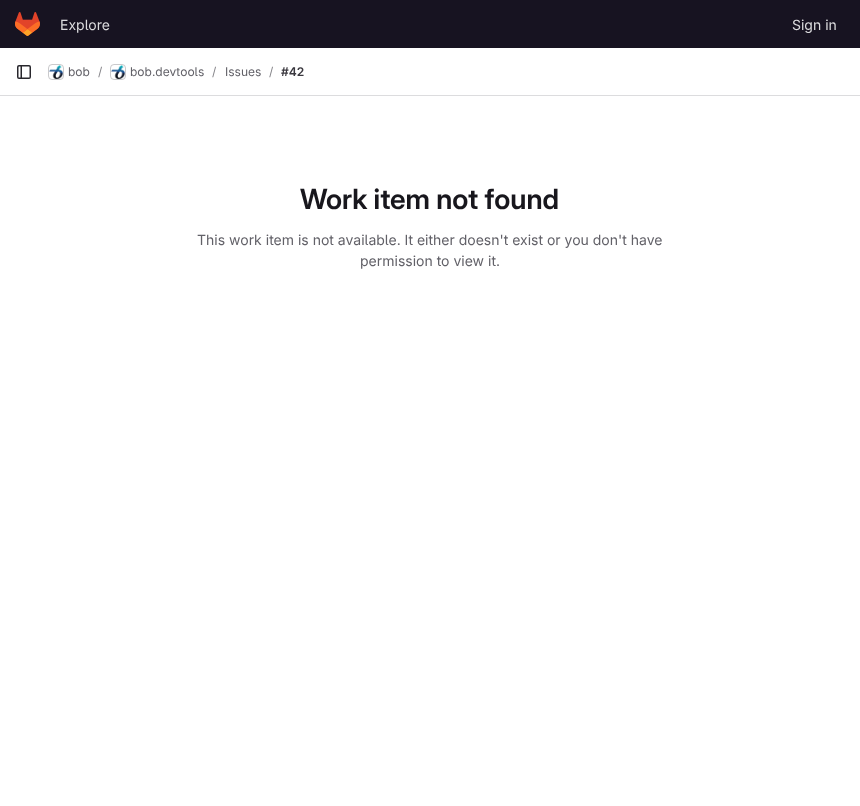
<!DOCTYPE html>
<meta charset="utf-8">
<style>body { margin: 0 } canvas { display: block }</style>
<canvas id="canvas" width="860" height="806"></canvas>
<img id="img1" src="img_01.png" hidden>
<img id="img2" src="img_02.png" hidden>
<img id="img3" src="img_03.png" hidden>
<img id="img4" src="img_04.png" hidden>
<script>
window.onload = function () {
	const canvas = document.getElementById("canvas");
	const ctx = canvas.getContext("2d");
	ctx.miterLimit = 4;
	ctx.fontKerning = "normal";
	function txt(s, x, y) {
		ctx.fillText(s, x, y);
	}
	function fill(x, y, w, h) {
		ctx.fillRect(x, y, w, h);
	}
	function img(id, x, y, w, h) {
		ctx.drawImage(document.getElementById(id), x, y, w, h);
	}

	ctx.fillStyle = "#FFFFFF";
	fill(0, 0, 860, 806);
	ctx.fillStyle = "#171321";
	fill(0, 0, 860, 48);
	img("img1", 15, 12, 25, 24);
	ctx.fillStyle = "#DCDCDE";
	fill(0, 95, 860, 1);
	img("img2", 17, 65, 14, 14);
	ctx.beginPath();
	ctx.roundRect(48.5, 64.5, 15, 15, 3.5);
	ctx.strokeStyle = "#DCDCDE";
	ctx.stroke();
	img("img3", 49, 65, 14, 14);
	ctx.beginPath();
	ctx.roundRect(48.5, 64.5, 15, 15, 3.5);
	ctx.strokeStyle = "rgba(5, 5, 6, 0.08)";
	ctx.stroke();
	ctx.beginPath();
	ctx.roundRect(110.5, 64.5, 15, 15, 3.5);
	ctx.strokeStyle = "#DCDCDE";
	ctx.stroke();
	img("img4", 111, 65, 14, 14);
	ctx.beginPath();
	ctx.roundRect(110.5, 64.5, 15, 15, 3.5);
	ctx.strokeStyle = "rgba(5, 5, 6, 0.08)";
	ctx.stroke();
	ctx.font = "14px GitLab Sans";
	txt("Explore", 60, 30);
	txt("Sign in", 792, 30);
	ctx.font = "12px GitLab Sans";
	ctx.fillStyle = "#626168";
	txt("bob", 68, 76);
	ctx.fillStyle = "#89888D";
	txt("/", 98, 76);
	ctx.fillStyle = "#626168";
	txt("bob.devtools", 130, 76);
	ctx.fillStyle = "#89888D";
	txt("/", 212, 76);
	ctx.fillStyle = "#626168";
	txt("Issues", 225, 76);
	ctx.fillStyle = "#89888D";
	txt("/", 269, 76);
	ctx.font = "600 12px 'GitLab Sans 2'";
	ctx.fillStyle = "#3A383F";
	txt("#42", 281, 76);
	ctx.font = "600 28px GitLab Sans";
	ctx.fillStyle = "#18171D";
	txt("Work item not found", 300, 209);
	ctx.font = "14px GitLab Sans";
	ctx.fillStyle = "#626168";
	txt("This work item is not available. It either doesn't exist or you don't have", 197, 245);
	txt("permission to view it.", 360, 266);
};
</script>
